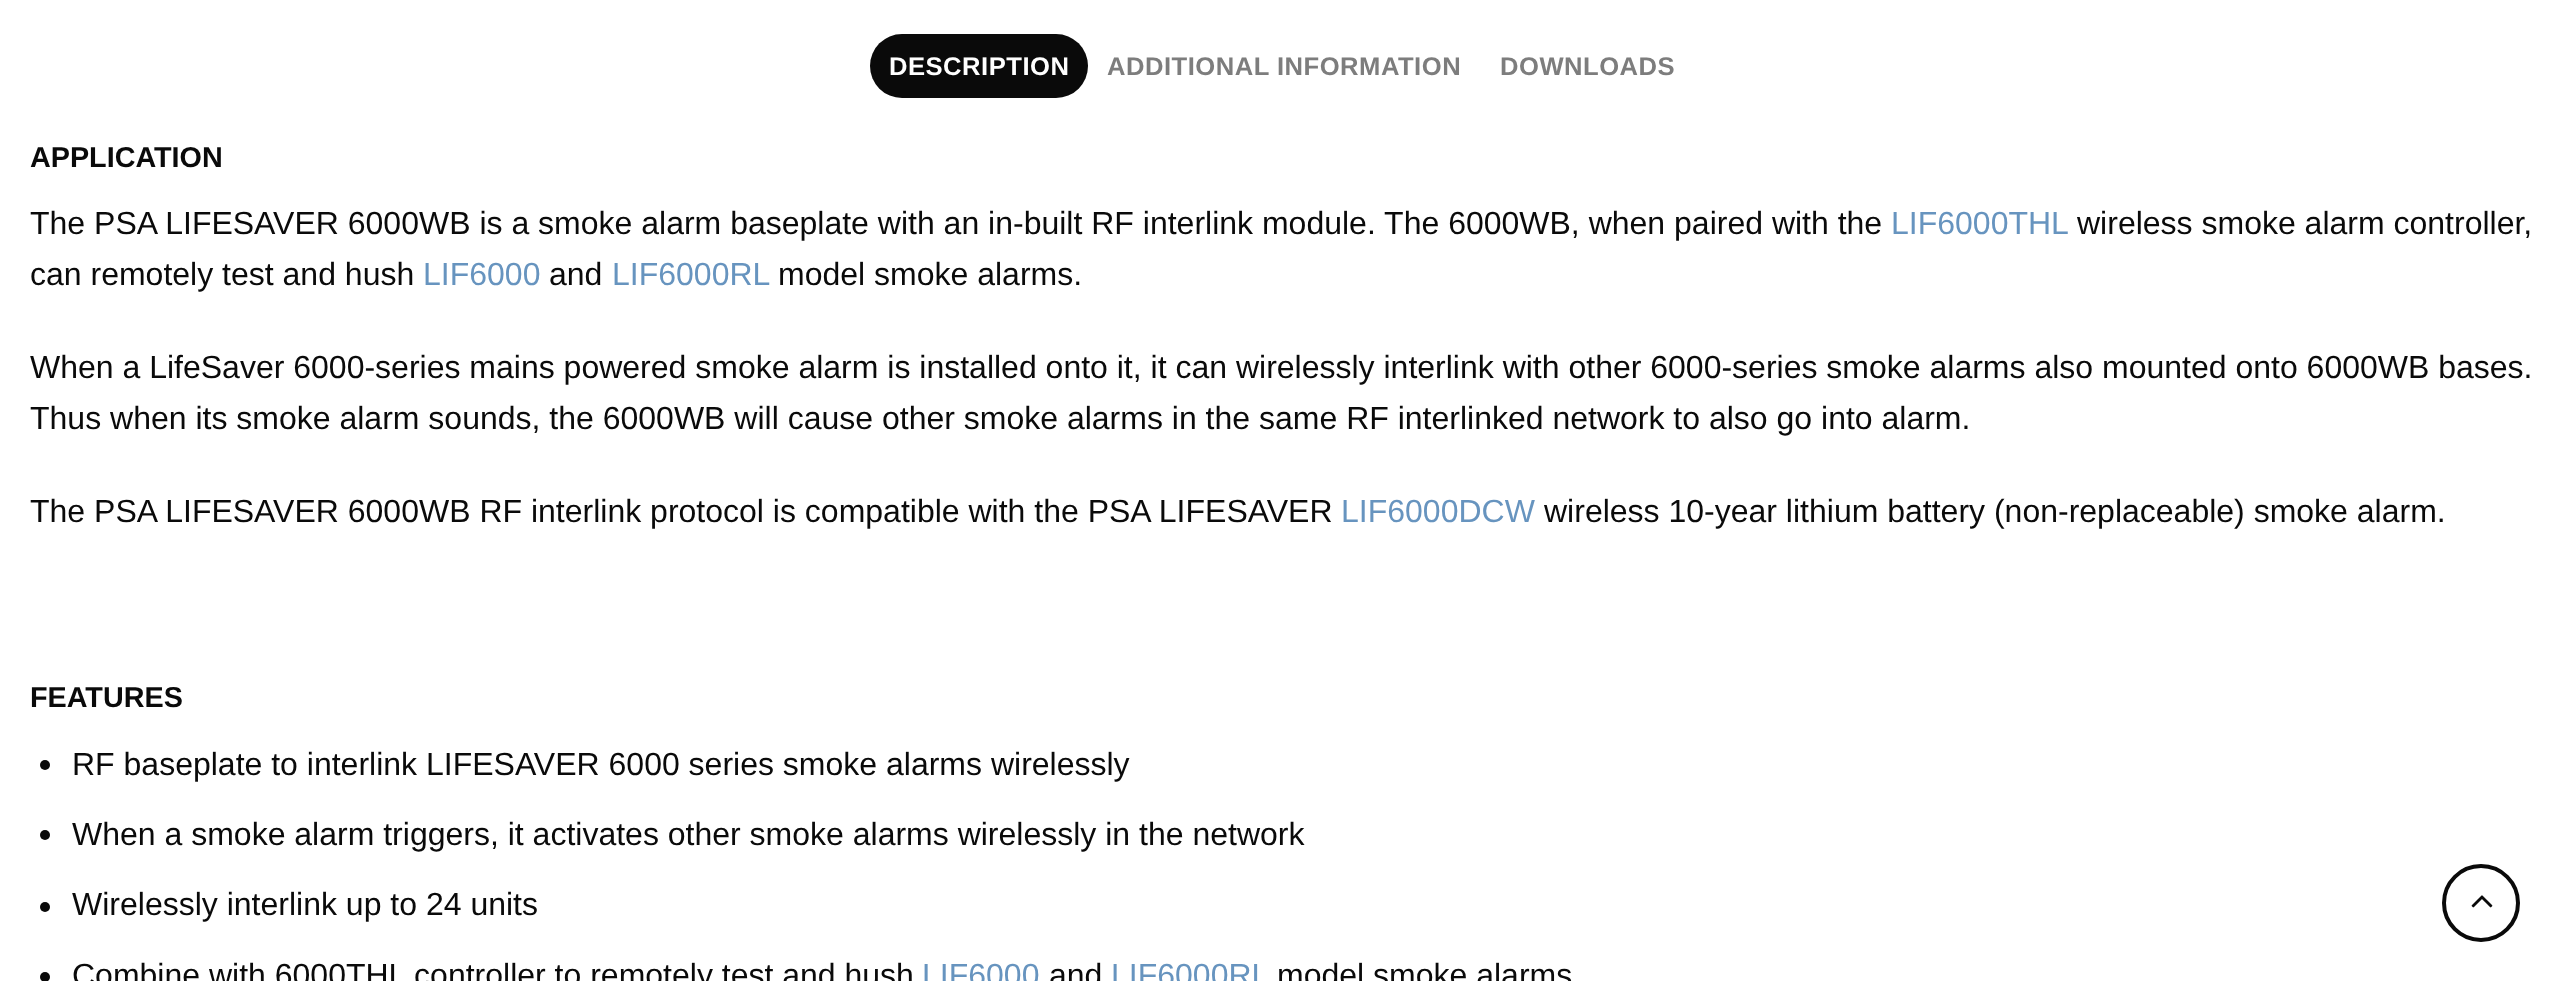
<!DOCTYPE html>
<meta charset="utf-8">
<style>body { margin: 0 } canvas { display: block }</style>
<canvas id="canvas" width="2563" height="981"></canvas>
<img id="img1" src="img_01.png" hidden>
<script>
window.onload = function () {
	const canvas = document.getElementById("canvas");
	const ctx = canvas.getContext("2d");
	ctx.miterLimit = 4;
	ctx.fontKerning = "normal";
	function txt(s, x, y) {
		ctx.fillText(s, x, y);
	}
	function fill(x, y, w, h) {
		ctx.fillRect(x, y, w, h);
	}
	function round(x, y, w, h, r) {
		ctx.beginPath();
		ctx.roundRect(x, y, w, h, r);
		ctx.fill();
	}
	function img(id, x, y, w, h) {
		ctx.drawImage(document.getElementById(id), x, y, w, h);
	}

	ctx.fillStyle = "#FFFFFF";
	fill(0, 0, 2563, 981);
	ctx.fillStyle = "#0A0A0A";
	round(870, 34, 218, 64, 32);
	ctx.beginPath();
	ctx.arc(45, 765, 5, 0, Math.PI * 2);
	ctx.fill();
	ctx.beginPath();
	ctx.arc(45, 835, 5, 0, Math.PI * 2);
	ctx.fill();
	ctx.beginPath();
	ctx.arc(45, 907, 5, 0, Math.PI * 2);
	ctx.fill();
	ctx.beginPath();
	ctx.arc(45, 977, 5, 0, Math.PI * 2);
	ctx.fill();
	ctx.beginPath();
	ctx.arc(2481, 903, 37, 0, Math.PI * 2);
	ctx.strokeStyle = "#0A0A0A";
	ctx.lineWidth = 4;
	ctx.stroke();
	img("img1", 2471, 895, 22, 13);
	ctx.letterSpacing = "0.5px";
	ctx.font = "bold 25.6px Liberation Sans";
	ctx.fillStyle = "#FFFFFF";
	txt("DESCRIPTION", 889, 75);
	ctx.fillStyle = "#7D7D7D";
	txt("ADDITIONAL INFORMATION", 1107, 75);
	txt("DOWNLOADS", 1500, 75);
	ctx.letterSpacing = "0px";
	ctx.font = "bold 28.75px Liberation Sans";
	ctx.fillStyle = "#0A0A0A";
	txt("APPLICATION", 30, 167);
	ctx.font = "32px Liberation Sans";
	txt("The PSA LIFESAVER 6000WB is a smoke alarm baseplate with an in-built RF interlink module. The 6000WB, when paired with the", 30, 234);
	ctx.fillStyle = "#6794BF";
	txt("LIF6000THL", 1891, 234);
	ctx.fillStyle = "#0A0A0A";
	txt("wireless smoke alarm controller,", 2077, 234);
	txt("can remotely test and hush", 30, 285);
	ctx.fillStyle = "#6794BF";
	txt("LIF6000", 423, 285);
	ctx.fillStyle = "#0A0A0A";
	txt("and", 549, 285);
	ctx.fillStyle = "#6794BF";
	txt("LIF6000RL", 612, 285);
	ctx.fillStyle = "#0A0A0A";
	txt("model smoke alarms.", 778, 285);
	txt("When a LifeSaver 6000-series mains powered smoke alarm is installed onto it, it can wirelessly interlink with other 6000-series smoke alarms also mounted onto 6000WB bases.", 30, 378);
	txt("Thus when its smoke alarm sounds, the 6000WB will cause other smoke alarms in the same RF interlinked network to also go into alarm.", 30, 429);
	txt("The PSA LIFESAVER 6000WB RF interlink protocol is compatible with the PSA LIFESAVER", 30, 522);
	ctx.fillStyle = "#6794BF";
	txt("LIF6000DCW", 1341, 522);
	ctx.fillStyle = "#0A0A0A";
	txt("wireless 10-year lithium battery (non-replaceable) smoke alarm.", 1544, 522);
	ctx.font = "bold 28.75px Liberation Sans";
	txt("FEATURES", 30, 707);
	ctx.font = "32px Liberation Sans";
	txt("RF baseplate to interlink LIFESAVER 6000 series smoke alarms wirelessly", 72, 775);
	txt("When a smoke alarm triggers, it activates other smoke alarms wirelessly in the network", 72, 845);
	txt("Wirelessly interlink up to 24 units", 72, 915);
	txt("Combine with 6000THL controller to remotely test and hush", 72, 986);
	ctx.fillStyle = "#6794BF";
	txt("LIF6000", 922, 986);
	ctx.fillStyle = "#0A0A0A";
	txt("and", 1049, 986);
	ctx.fillStyle = "#6794BF";
	txt("LIF6000RL", 1111, 986);
	ctx.fillStyle = "#0A0A0A";
	txt("model smoke alarms", 1277, 986);
};
</script>
